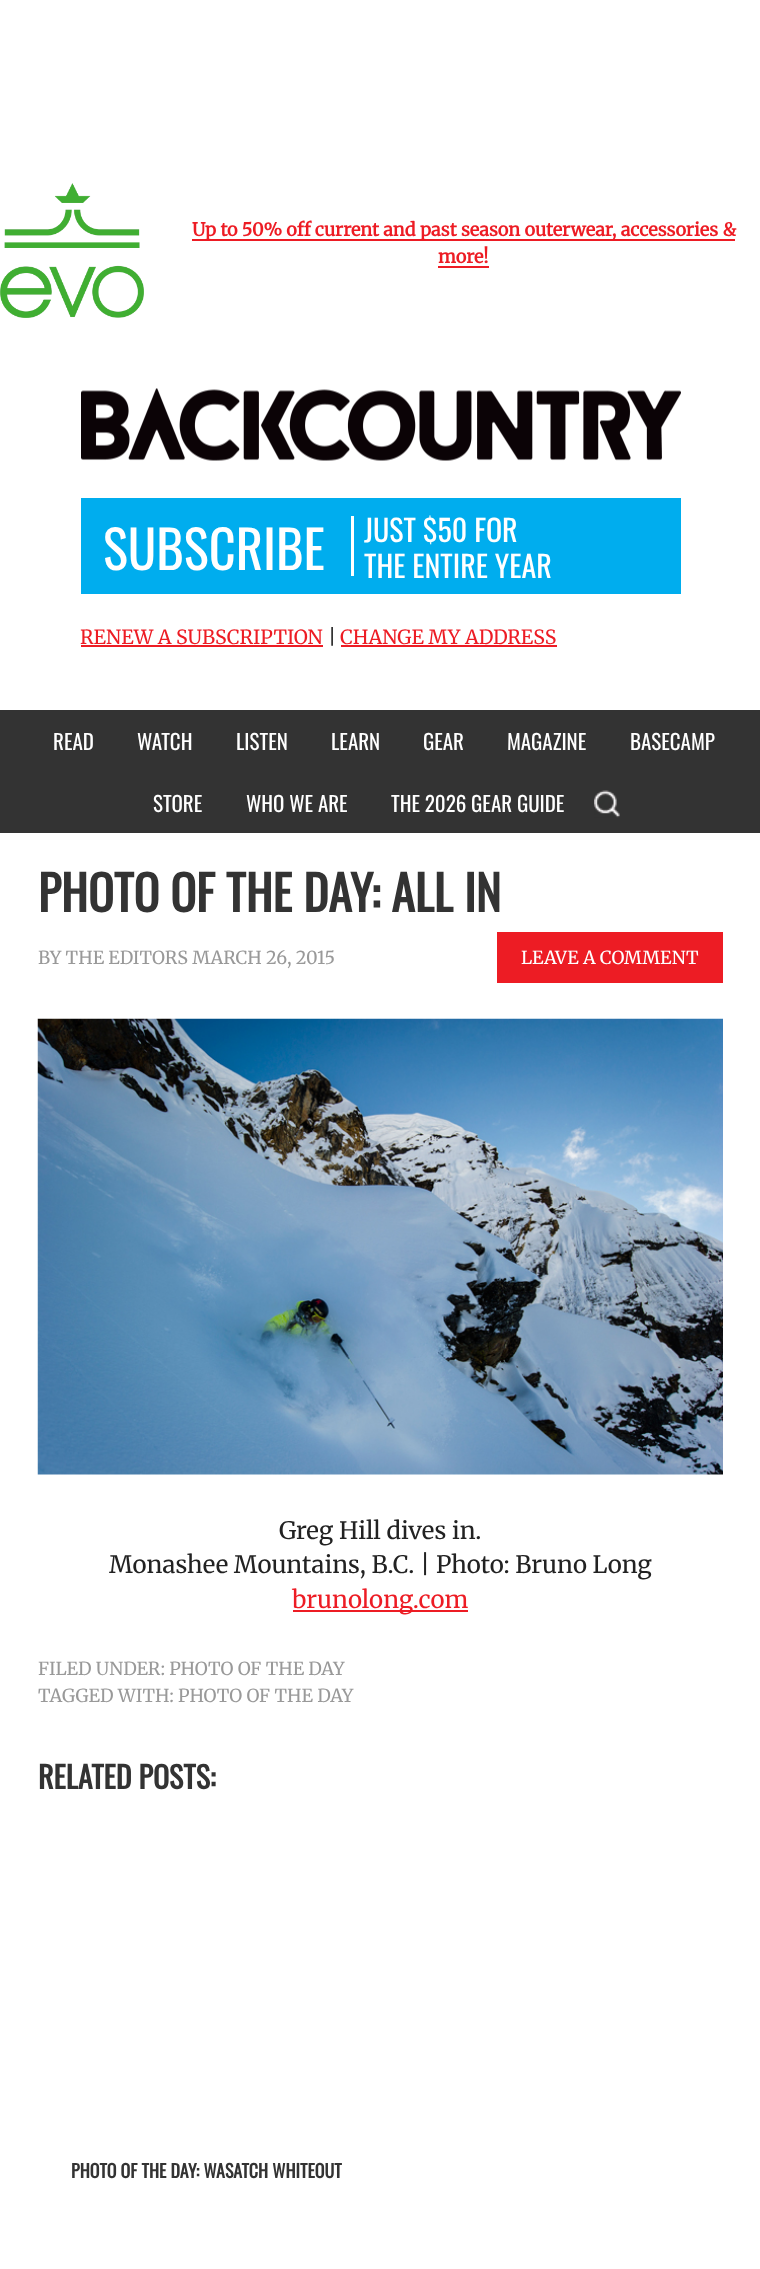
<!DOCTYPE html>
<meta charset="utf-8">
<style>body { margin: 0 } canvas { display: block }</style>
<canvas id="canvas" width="760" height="2269"></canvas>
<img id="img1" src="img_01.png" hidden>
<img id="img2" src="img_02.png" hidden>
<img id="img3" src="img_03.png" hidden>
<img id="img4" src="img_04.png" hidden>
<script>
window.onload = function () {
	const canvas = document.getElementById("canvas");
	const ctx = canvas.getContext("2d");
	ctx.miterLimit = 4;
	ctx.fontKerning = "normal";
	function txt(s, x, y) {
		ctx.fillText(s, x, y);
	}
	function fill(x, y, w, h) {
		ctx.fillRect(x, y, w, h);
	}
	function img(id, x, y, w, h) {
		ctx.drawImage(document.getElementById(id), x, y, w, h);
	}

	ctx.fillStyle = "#FFFFFF";
	fill(0, 0, 760, 2269);
	img("img1", 0, 183, 144, 135);
	ctx.fillStyle = "#ED1C24";
	fill(192, 239, 543, 2);
	fill(438, 266, 51, 2);
	img("img2", 81, 388, 600, 73);
	ctx.fillStyle = "#00ADEE";
	fill(81, 498, 600, 96);
	ctx.fillStyle = "#FFFFFF";
	fill(351, 516, 3, 60);
	ctx.fillStyle = "#ED1C24";
	fill(81, 645, 242, 2);
	fill(341, 645, 216, 2);
	ctx.fillStyle = "#333333";
	fill(0, 710, 760, 123);
	img("img3", 594, 790, 26, 28);
	ctx.fillStyle = "#ED1C24";
	fill(497, 932, 226, 51);
	img("img4", 37, 1018, 686, 457);
	fill(293, 1610, 175, 2);
	ctx.font = "bold 18px Merriweather";
	txt("Up to 50% off current and past season outerwear, accessories &", 192, 236);
	txt("more!", 438, 263);
	ctx.font = "52.5px Oswald";
	ctx.fillStyle = "#FFFFFF";
	txt("SUBSCRIBE", 103, 570);
	ctx.font = "30px Oswald";
	txt("JUST $50 FOR", 364, 542);
	txt("THE ENTIRE YEAR", 364, 578);
	ctx.font = "300 19.5px Merriweather";
	ctx.fillStyle = "#ED1C24";
	txt("RENEW A SUBSCRIPTION", 80, 644);
	ctx.fillStyle = "#222222";
	txt("|", 328, 644);
	ctx.fillStyle = "#ED1C24";
	txt("CHANGE MY ADDRESS", 340, 644);
	ctx.font = "21px Oswald";
	ctx.fillStyle = "#FFFFFF";
	txt("READ", 53, 750);
	txt("WATCH", 137, 750);
	txt("LISTEN", 236, 750);
	txt("LEARN", 331, 750);
	txt("GEAR", 423, 750);
	txt("MAGAZINE", 507, 750);
	txt("BASECAMP", 630, 750);
	txt("STORE", 153, 812);
	txt("WHO WE ARE", 246, 812);
	txt("THE 2026 GEAR GUIDE", 391, 812);
	ctx.font = "bold 48px Oswald";
	ctx.fillStyle = "#333333";
	txt("PHOTO OF THE DAY: ALL IN", 38, 912);
	ctx.font = "300 18px Merriweather";
	ctx.fillStyle = "#999999";
	txt("BY THE EDITORS MARCH 26, 2015", 38, 964);
	ctx.fillStyle = "#FFFFFF";
	txt("LEAVE A COMMENT", 521, 964);
	ctx.font = "300 24px Merriweather";
	ctx.fillStyle = "#222222";
	txt("Greg Hill dives in.", 279, 1539);
	txt("Monashee Mountains, B.C. | Photo: Bruno Long", 109, 1573);
	ctx.fillStyle = "#ED1C24";
	txt("brunolong.com", 292, 1608);
	ctx.font = "300 18px Merriweather";
	ctx.fillStyle = "#999999";
	txt("FILED UNDER: PHOTO OF THE DAY", 38, 1675);
	txt("TAGGED WITH: PHOTO OF THE DAY", 38, 1702);
	ctx.font = "bold 30px Oswald";
	ctx.fillStyle = "#333333";
	txt("RELATED POSTS:", 38, 1789);
	ctx.font = "bold 18px Oswald";
	txt("PHOTO OF THE DAY: WASATCH WHITEOUT", 71, 2178);
};
</script>
